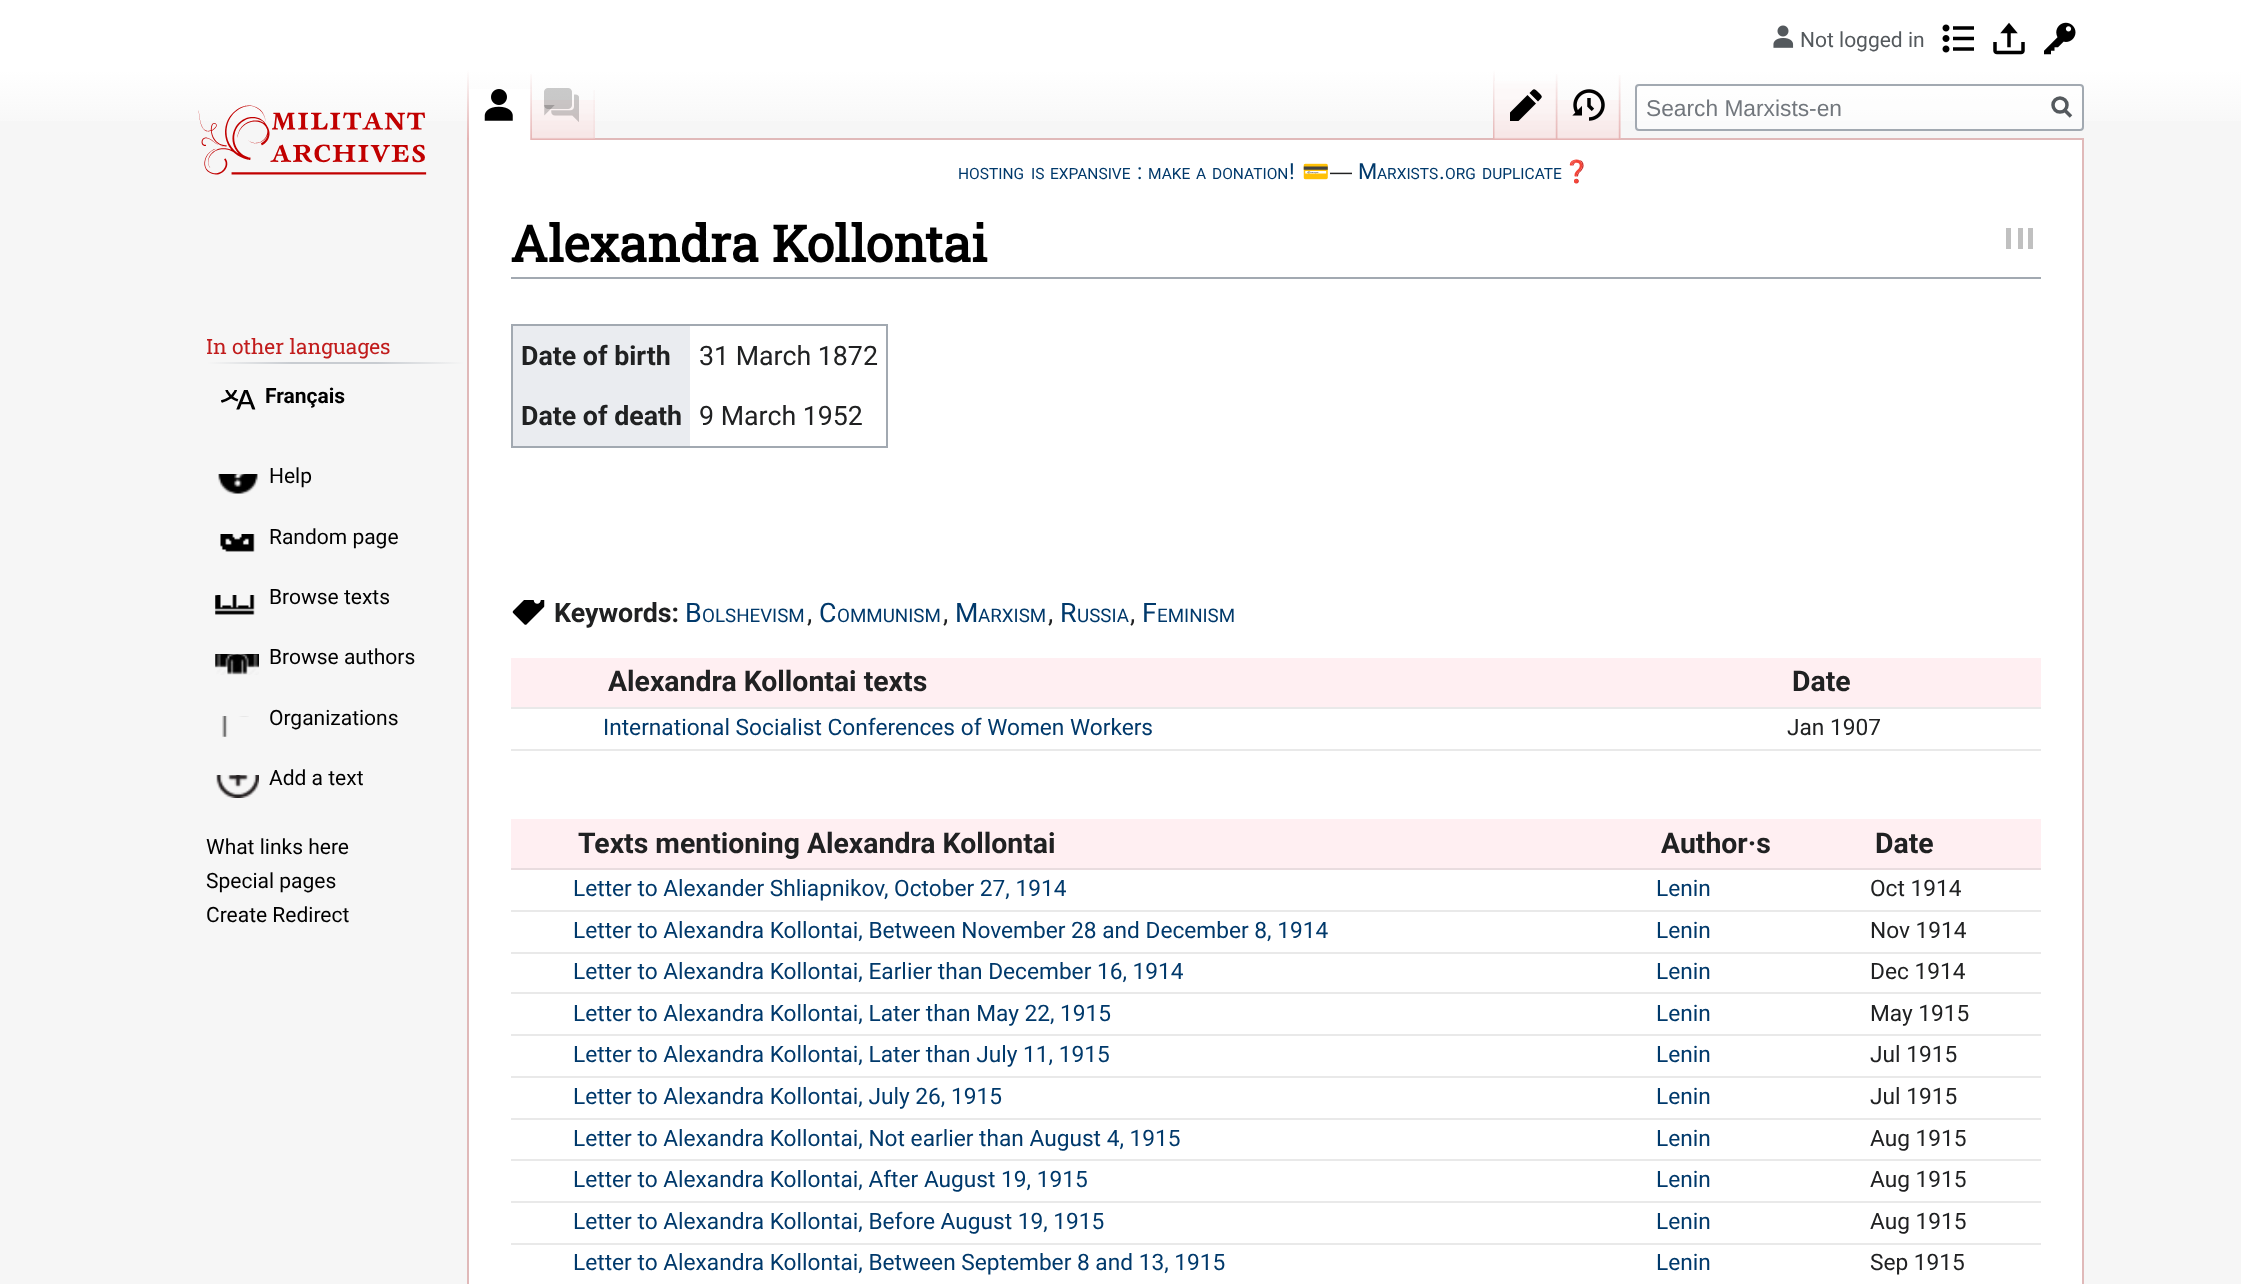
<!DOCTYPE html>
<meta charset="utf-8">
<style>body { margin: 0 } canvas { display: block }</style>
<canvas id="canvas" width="2241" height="1284"></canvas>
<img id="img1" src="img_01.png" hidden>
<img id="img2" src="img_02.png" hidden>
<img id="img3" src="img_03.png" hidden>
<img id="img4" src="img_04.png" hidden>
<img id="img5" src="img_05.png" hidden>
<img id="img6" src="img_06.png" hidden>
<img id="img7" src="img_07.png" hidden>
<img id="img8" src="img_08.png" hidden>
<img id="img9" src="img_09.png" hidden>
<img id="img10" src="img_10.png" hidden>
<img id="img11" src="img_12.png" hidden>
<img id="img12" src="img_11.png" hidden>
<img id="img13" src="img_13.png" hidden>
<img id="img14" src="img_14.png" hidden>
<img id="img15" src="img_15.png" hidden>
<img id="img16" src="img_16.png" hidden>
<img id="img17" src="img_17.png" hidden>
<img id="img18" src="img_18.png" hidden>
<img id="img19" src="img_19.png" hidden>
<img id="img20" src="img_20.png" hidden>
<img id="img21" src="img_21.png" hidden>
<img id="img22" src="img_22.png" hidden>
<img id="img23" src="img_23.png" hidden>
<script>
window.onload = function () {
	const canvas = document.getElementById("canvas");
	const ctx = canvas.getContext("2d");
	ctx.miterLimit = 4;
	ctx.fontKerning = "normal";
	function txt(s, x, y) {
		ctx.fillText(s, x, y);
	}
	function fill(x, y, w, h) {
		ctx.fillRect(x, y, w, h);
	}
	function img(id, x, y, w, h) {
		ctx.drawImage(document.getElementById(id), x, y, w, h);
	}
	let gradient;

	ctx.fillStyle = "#F6F6F6";
	fill(0, 0, 2241, 1284);
	gradient = ctx.createLinearGradient(1121, 0, 1121, 140);
	gradient.addColorStop(0.5, "#FFFFFF");
	gradient.addColorStop(1, "#F6F6F6");
	ctx.fillStyle = gradient;
	fill(0, 0, 2241, 121);
	img("img1", 1773, 25, 21, 23);
	img("img2", 1942, 24, 32, 29);
	img("img3", 1993, 22, 32, 33);
	img("img4", 2044, 22, 32, 33);
	ctx.fillStyle = "#FFFFFF";
	ctx.beginPath();
	ctx.rect(468, 139, 1615, 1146);
	ctx.fill();
	ctx.strokeStyle = "#E0B9B9";
	ctx.lineWidth = 2;
	ctx.stroke();
	gradient = ctx.createLinearGradient(468, 70, 468, 140);
	gradient.addColorStop(0, "rgba(230, 180, 180, 0)");
	gradient.addColorStop(1, "#E6B4B4");
	ctx.fillStyle = gradient;
	fill(467, 70, 2, 70);
	ctx.fillStyle = "#FFFFFF";
	fill(469, 89, 63, 51);
	img("img5", 484, 89, 29, 32);
	img("img6", 530, 74, 2, 66);
	img("img7", 532, 100, 63, 40);
	img("img8", 544, 88, 35, 34);
	img("img9", 593, 90, 2, 49);
	gradient = ctx.createLinearGradient(1494, 70, 1494, 140);
	gradient.addColorStop(0, "rgba(230, 180, 180, 0)");
	gradient.addColorStop(1, "#E6B4B4");
	ctx.fillStyle = gradient;
	fill(1493, 70, 2, 70);
	img("img10", 1494, 81, 64, 59);
	ctx.fillStyle = "#000000";
	ctx.beginPath();
	ctx.moveTo(1538, 101.5);
	ctx.bezierCurveTo(1542.5, 96.5, 1543.5, 97.5, 1538.5, 92.5);
	ctx.bezierCurveTo(1533.5, 87.5, 1534, 88.5, 1529.5, 93);
	ctx.closePath();
	ctx.moveTo(1510, 112.5);
	ctx.lineTo(1510, 121);
	ctx.lineTo(1518.5, 121);
	ctx.lineTo(1536, 103.5);
	ctx.lineTo(1527.5, 95);
	ctx.closePath();
	ctx.fill();
	img("img11", 1557, 100, 64, 40);
	img("img12", 1555, 74, 3, 65);
	img("img13", 1572, 89, 33, 32);
	img("img14", 1618, 75, 3, 64);
	ctx.fillStyle = "rgba(255, 255, 255, 0.5)";
	ctx.beginPath();
	ctx.roundRect(1636, 85, 447, 45, 3);
	ctx.fill();
	ctx.strokeStyle = "#A2A9B1";
	ctx.stroke();
	ctx.beginPath();
	ctx.moveTo(2071, 116.5);
	ctx.lineTo(2064, 109.5);
	ctx.strokeStyle = "#54595D";
	ctx.lineWidth = 3.5;
	ctx.stroke();
	ctx.beginPath();
	ctx.arc(2060, 105, 7, 0, Math.PI * 2);
	ctx.stroke();
	img("img15", 198, 105, 229, 70);
	gradient = ctx.createLinearGradient(207, 363, 464, 363);
	gradient.addColorStop(0, "#F6F6F6");
	gradient.addColorStop(0.33, "#C8CCD1");
	gradient.addColorStop(0.66, "#C8CCD1");
	gradient.addColorStop(1, "#F6F6F6");
	ctx.fillStyle = gradient;
	fill(207, 362, 257, 2);
	img("img16", 221, 390, 35, 20);
	img("img17", 218, 474, 40, 20);
	img("img18", 220, 534, 35, 18);
	img("img19", 215, 595, 40, 20);
	img("img20", 215, 654, 44, 21);
	img("img21", 222, 716, 27, 21);
	img("img22", 216, 775, 43, 23);
	ctx.fillStyle = "#A2A9B1";
	fill(511, 277, 1530, 2);
	ctx.fillStyle = "#C0C0C0";
	fill(2018, 228, 5, 21);
	fill(2006, 228, 5, 21);
	fill(2028, 228, 5, 21);
	ctx.fillStyle = "#A2A9B1";
	fill(511, 324, 376, 2);
	fill(886, 324, 2, 124);
	fill(511, 446, 376, 2);
	fill(511, 324, 2, 124);
	ctx.fillStyle = "#EAECF0";
	fill(513, 326, 177, 120);
	img("img23", 512, 600, 33, 25);
	ctx.fillStyle = "#E9E9E9";
	fill(511, 707, 1530, 2);
	ctx.fillStyle = "#FFEFF2";
	fill(511, 658, 1530, 49);
	ctx.fillStyle = "#E9E9E9";
	fill(511, 749, 1530, 2);
	ctx.fillStyle = "#E9DCDF";
	fill(511, 868, 1530, 2);
	ctx.fillStyle = "#FFEFF2";
	fill(511, 819, 1530, 49);
	ctx.fillStyle = "#E9E9E9";
	fill(511, 910, 1530, 2);
	fill(511, 952, 1530, 2);
	fill(511, 992, 1530, 2);
	fill(511, 1034, 1530, 2);
	fill(511, 1076, 1530, 2);
	fill(511, 1118, 1530, 2);
	fill(511, 1159, 1530, 2);
	fill(511, 1201, 1530, 2);
	fill(511, 1243, 1530, 2);
	ctx.font = "21px Roboto";
	ctx.fillStyle = "#54595D";
	txt("Not logged in", 1800, 47);
	ctx.font = "22.75px Liberation Sans";
	ctx.fillStyle = "#72777D";
	txt("Search Marxists-en", 1646, 116);
	ctx.save();
	ctx.beginPath();
	ctx.rect(207, 326, 257, 38);
	ctx.clip();
	ctx.font = "21px Roboto Slab";
	ctx.fillStyle = "#C11C1C";
	txt("In other languages", 206, 354);
	ctx.restore();
	ctx.font = "bold 21px Roboto";
	ctx.fillStyle = "#000000";
	txt("Français", 265, 403);
	ctx.font = "21px Roboto";
	txt("Help", 269, 483);
	txt("Random page", 269, 544);
	txt("Browse texts", 269, 604);
	txt("Browse authors", 269, 664);
	txt("Organizations", 269, 725);
	txt("Add a text", 269, 785);
	txt("What links here", 206, 854);
	txt("Special pages", 206, 888);
	txt("Create Redirect", 206, 922);
	ctx.font = "15.5px Roboto";
	ctx.fillStyle = "#00396B";
	txt("HOSTING", 958, 179);
	txt("IS", 1031, 179);
	txt("EXPANSIVE", 1050, 179);
	ctx.font = "22px Roboto";
	txt(":", 1137, 179);
	ctx.font = "15.5px Roboto";
	txt("MAKE", 1148, 179);
	txt("A", 1196, 179);
	txt("DONATION", 1212, 179);
	ctx.font = "22px Roboto";
	txt("!", 1289, 179);
	ctx.font = "22px Noto Color Emoji";
	ctx.fillStyle = "#202122";
	txt("💳", 1302, 179);
	ctx.font = "22px Liberation Sans";
	txt("―", 1330, 179);
	ctx.font = "22px Roboto";
	ctx.fillStyle = "#00396B";
	txt("M", 1358, 179);
	ctx.font = "15.5px Roboto";
	txt("ARXISTS", 1377, 179);
	txt("ORG", 1445, 179);
	txt("DUPLICATE", 1482, 179);
	ctx.font = "22px Noto Color Emoji";
	ctx.fillStyle = "#202122";
	txt("❓", 1563, 179);
	ctx.font = "22px Roboto";
	ctx.fillStyle = "#00396B";
	txt(".", 1439, 179);
	ctx.font = "bold 50.5px Roboto Slab";
	ctx.fillStyle = "#000000";
	txt("Alexandra Kollontai", 510, 262);
	ctx.font = "bold 26.75px Roboto";
	ctx.fillStyle = "#202122";
	txt("Date of birth", 521, 365);
	ctx.font = "26.75px Roboto";
	txt("31 March 1872", 699, 365);
	ctx.font = "bold 26.75px Roboto";
	txt("Date of death", 521, 425);
	ctx.font = "26.75px Roboto";
	txt("9 March 1952", 699, 425);
	ctx.font = "bold 26.75px Roboto";
	txt("Keywords:", 554, 622);
	ctx.font = "26.75px Roboto";
	ctx.fillStyle = "#00396B";
	txt("B", 685, 622);
	ctx.font = "18.75px Roboto";
	txt("OLSHEVISM", 702, 622);
	ctx.font = "26.75px Roboto";
	ctx.fillStyle = "#202122";
	txt(",", 807, 622);
	ctx.fillStyle = "#00396B";
	txt("C", 819, 622);
	ctx.font = "18.75px Roboto";
	txt("OMMUNISM", 837, 622);
	ctx.font = "26.75px Roboto";
	ctx.fillStyle = "#202122";
	txt(",", 943, 622);
	ctx.fillStyle = "#00396B";
	txt("M", 955, 622);
	ctx.font = "18.75px Roboto";
	txt("ARXISM", 978, 622);
	ctx.font = "26.75px Roboto";
	ctx.fillStyle = "#202122";
	txt(",", 1048, 622);
	ctx.fillStyle = "#00396B";
	txt("R", 1060, 622);
	ctx.font = "18.75px Roboto";
	txt("USSIA", 1077, 622);
	ctx.font = "26.75px Roboto";
	ctx.fillStyle = "#202122";
	txt(",", 1130, 622);
	ctx.fillStyle = "#00396B";
	txt("F", 1142, 622);
	ctx.font = "18.75px Roboto";
	txt("EMINISM", 1157, 622);
	ctx.font = "bold 28.4px Roboto";
	ctx.fillStyle = "#202122";
	txt("Alexandra Kollontai texts", 608, 691);
	txt("Date", 1792, 691);
	ctx.font = "22.7px Roboto";
	ctx.fillStyle = "#00396B";
	txt("International Socialist Conferences of Women Workers", 603, 735);
	ctx.fillStyle = "#202122";
	txt("Jan 1907", 1787, 735);
	ctx.font = "bold 28.4px Roboto";
	txt("Texts mentioning Alexandra Kollontai", 578, 853);
	txt("Author·s", 1661, 853);
	txt("Date", 1875, 853);
	ctx.font = "22.7px Roboto";
	ctx.fillStyle = "#00396B";
	txt("Letter to Alexander Shliapnikov, October 27, 1914", 573, 896);
	txt("Lenin", 1656, 896);
	ctx.fillStyle = "#202122";
	txt("Oct 1914", 1870, 896);
	ctx.fillStyle = "#00396B";
	txt("Letter to Alexandra Kollontai, Between November 28 and December 8, 1914", 573, 938);
	txt("Lenin", 1656, 938);
	ctx.fillStyle = "#202122";
	txt("Nov 1914", 1870, 938);
	ctx.fillStyle = "#00396B";
	txt("Letter to Alexandra Kollontai, Earlier than December 16, 1914", 573, 979);
	txt("Lenin", 1656, 979);
	ctx.fillStyle = "#202122";
	txt("Dec 1914", 1870, 979);
	ctx.fillStyle = "#00396B";
	txt("Letter to Alexandra Kollontai, Later than May 22, 1915", 573, 1021);
	txt("Lenin", 1656, 1021);
	ctx.fillStyle = "#202122";
	txt("May 1915", 1870, 1021);
	ctx.fillStyle = "#00396B";
	txt("Letter to Alexandra Kollontai, Later than July 11, 1915", 573, 1062);
	txt("Lenin", 1656, 1062);
	ctx.fillStyle = "#202122";
	txt("Jul 1915", 1870, 1062);
	ctx.fillStyle = "#00396B";
	txt("Letter to Alexandra Kollontai, July 26, 1915", 573, 1104);
	txt("Lenin", 1656, 1104);
	ctx.fillStyle = "#202122";
	txt("Jul 1915", 1870, 1104);
	ctx.fillStyle = "#00396B";
	txt("Letter to Alexandra Kollontai, Not earlier than August 4, 1915", 573, 1146);
	txt("Lenin", 1656, 1146);
	ctx.fillStyle = "#202122";
	txt("Aug 1915", 1870, 1146);
	ctx.fillStyle = "#00396B";
	txt("Letter to Alexandra Kollontai, After August 19, 1915", 573, 1187);
	txt("Lenin", 1656, 1187);
	ctx.fillStyle = "#202122";
	txt("Aug 1915", 1870, 1187);
	ctx.fillStyle = "#00396B";
	txt("Letter to Alexandra Kollontai, Before August 19, 1915", 573, 1229);
	txt("Lenin", 1656, 1229);
	ctx.fillStyle = "#202122";
	txt("Aug 1915", 1870, 1229);
	ctx.fillStyle = "#00396B";
	txt("Letter to Alexandra Kollontai, Between September 8 and 13, 1915", 573, 1270);
	txt("Lenin", 1656, 1270);
	ctx.fillStyle = "#202122";
	txt("Sep 1915", 1870, 1270);
};
</script>
